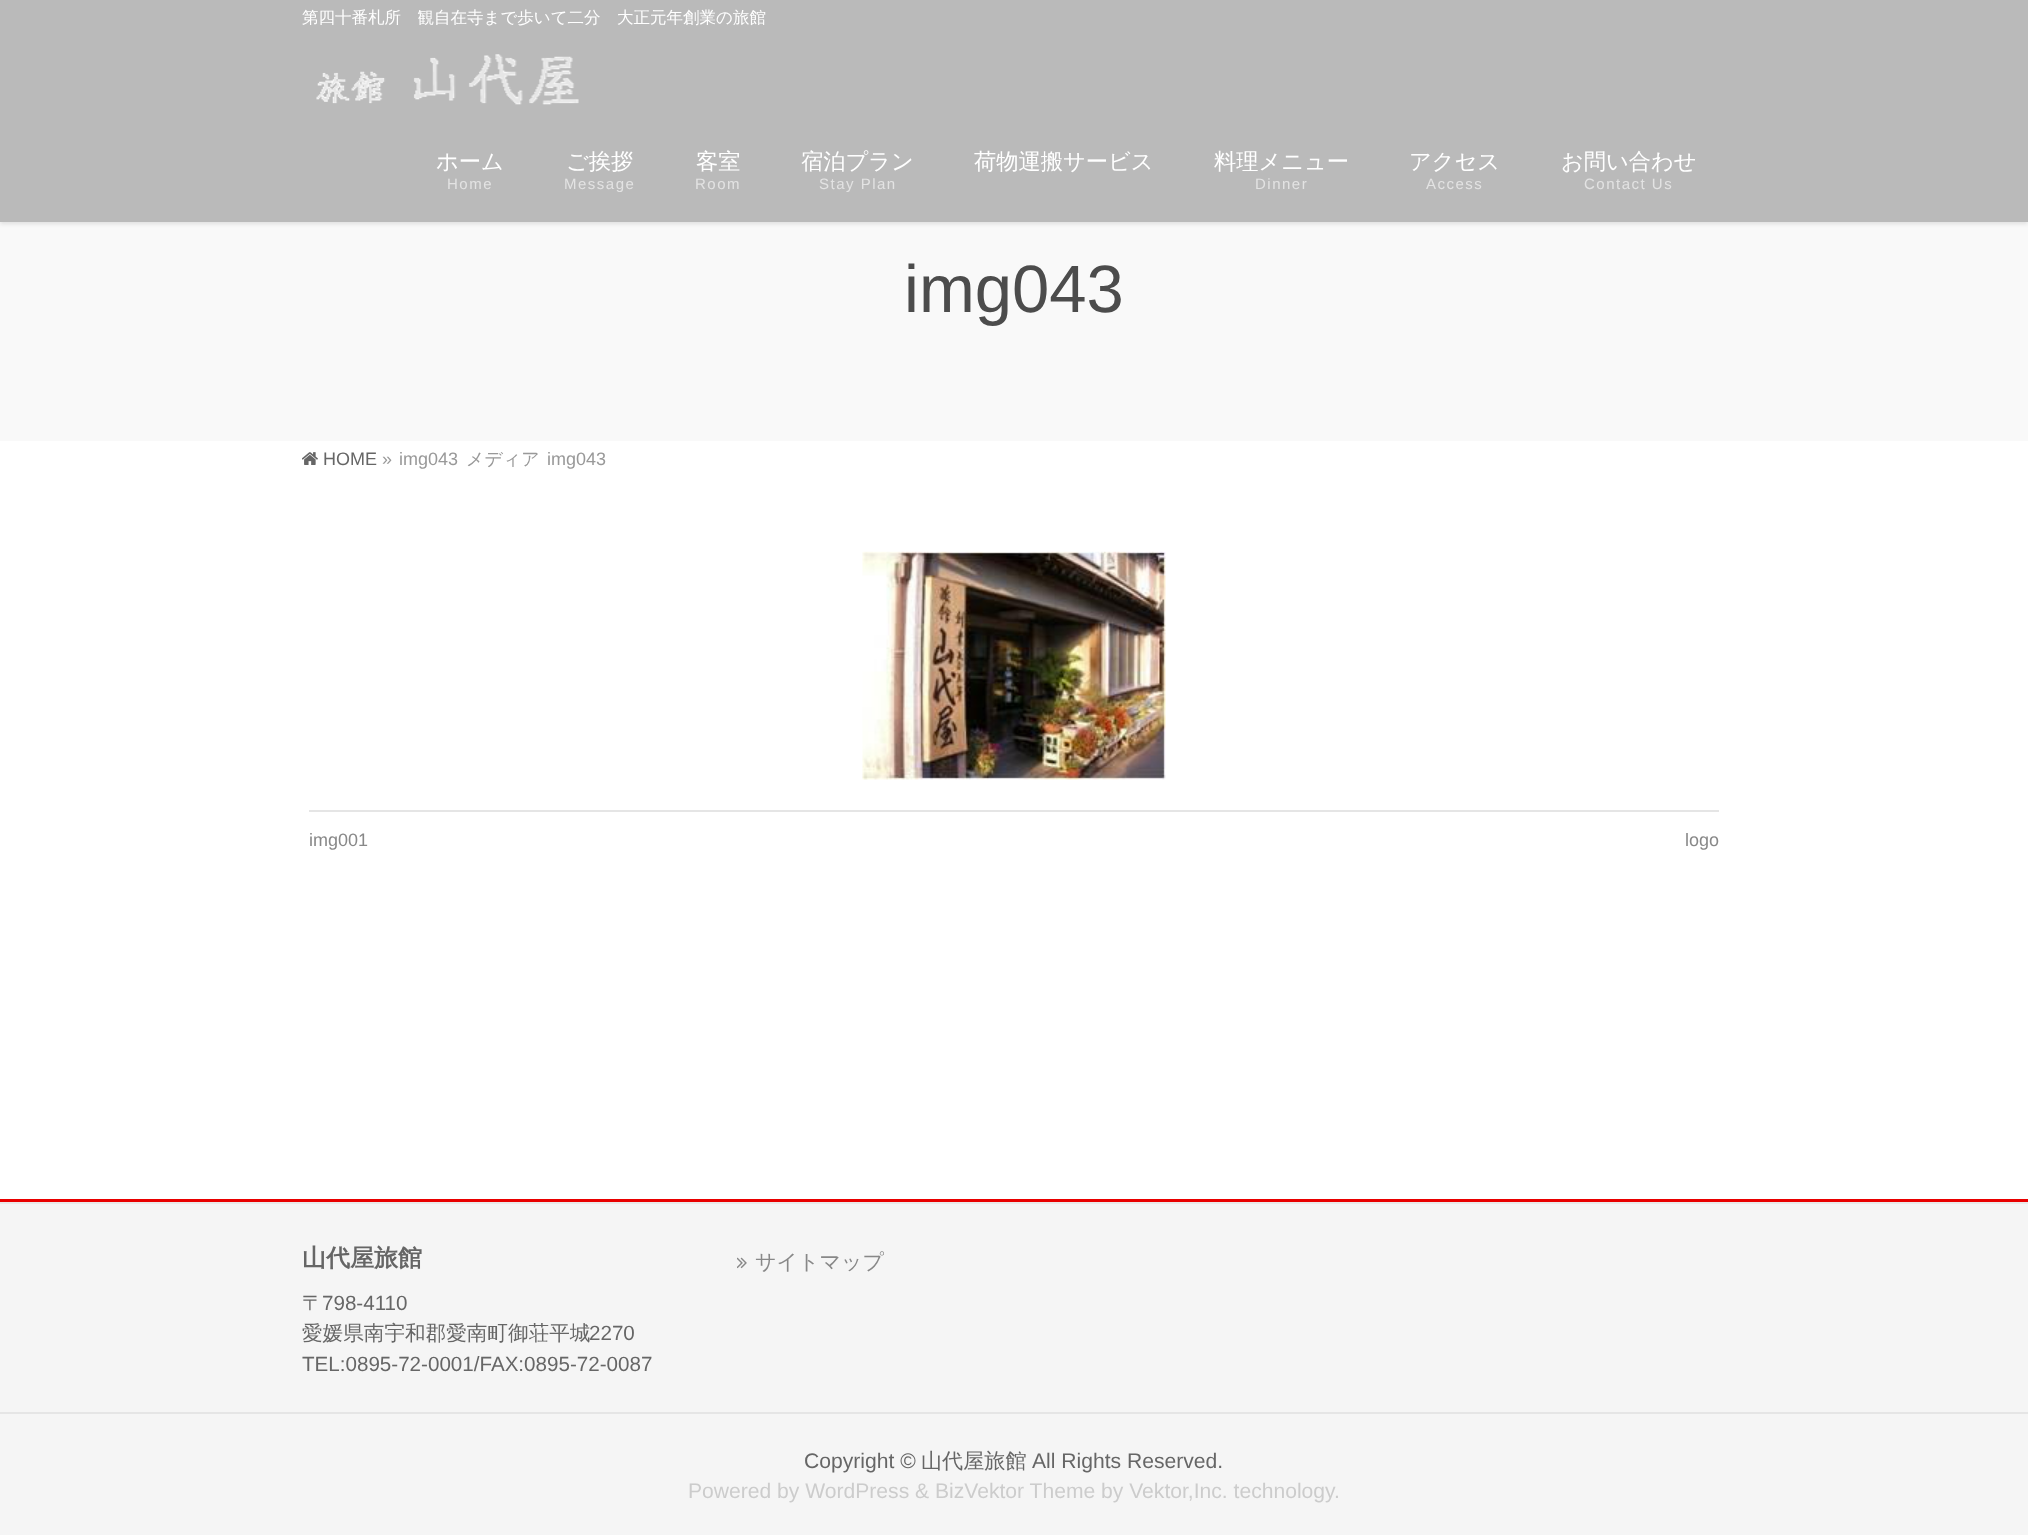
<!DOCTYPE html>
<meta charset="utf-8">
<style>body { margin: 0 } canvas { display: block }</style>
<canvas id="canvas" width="2028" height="1537"></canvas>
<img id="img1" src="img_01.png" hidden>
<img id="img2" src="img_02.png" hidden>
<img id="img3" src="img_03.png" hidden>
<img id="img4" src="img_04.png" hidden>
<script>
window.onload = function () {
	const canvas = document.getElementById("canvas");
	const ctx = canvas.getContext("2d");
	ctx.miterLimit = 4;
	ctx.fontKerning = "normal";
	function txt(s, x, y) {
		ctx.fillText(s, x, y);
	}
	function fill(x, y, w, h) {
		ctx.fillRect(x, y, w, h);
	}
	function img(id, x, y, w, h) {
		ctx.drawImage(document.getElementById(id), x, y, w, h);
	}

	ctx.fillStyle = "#FFFFFF";
	fill(0, 0, 2028, 1537);
	ctx.fillStyle = "#F9F9F9";
	fill(0, 222, 2028, 219);
	ctx.fillStyle = "rgba(0, 0, 0, 0.1)";
	ctx.filter = "blur(2px)";
	ctx.beginPath();
	ctx.rect(0, 2, 2028, 222);
	ctx.fill();
	ctx.filter = "none";
	ctx.fillStyle = "#BABABA";
	fill(0, 0, 2028, 222);
	img("img1", 316, 54, 263, 51);
	img("img2", 302, 452, 16, 13);
	img("img3", 862, 551, 304, 229);
	ctx.fillStyle = "#E5E5E5";
	fill(309, 810, 1410, 2);
	ctx.fillStyle = "#E90000";
	fill(0, 1199, 2028, 3);
	ctx.fillStyle = "#E9E9E9";
	fill(0, 1202, 2028, 2);
	ctx.fillStyle = "#F5F5F5";
	fill(0, 1204, 2028, 208);
	img("img4", 737, 1257, 10, 12);
	fill(0, 1414, 2028, 121);
	ctx.fillStyle = "#E5E5E5";
	fill(0, 1412, 2028, 2);
	ctx.font = "500 16.5px WenQuanYi Zen Hei";
	ctx.fillStyle = "#FFFFFF";
	txt("第四十番札所　観自在寺まで歩いて二分　大正元年創業の旅館", 302, 23);
	ctx.font = "500 22.25px WenQuanYi Zen Hei";
	txt("ホーム", 436, 169);
	ctx.letterSpacing = "1.5px";
	ctx.font = "15px Liberation Sans";
	ctx.fillStyle = "#E3E3E3";
	txt("Home", 447, 189);
	ctx.letterSpacing = "0px";
	ctx.font = "500 22.25px WenQuanYi Zen Hei";
	ctx.fillStyle = "#FFFFFF";
	txt("ご挨拶", 566, 169);
	ctx.letterSpacing = "1.5px";
	ctx.font = "15px Liberation Sans";
	ctx.fillStyle = "#E3E3E3";
	txt("Message", 564, 189);
	ctx.letterSpacing = "0px";
	ctx.font = "500 22.25px WenQuanYi Zen Hei";
	ctx.fillStyle = "#FFFFFF";
	txt("客室", 696, 169);
	ctx.letterSpacing = "1.5px";
	ctx.font = "15px Liberation Sans";
	ctx.fillStyle = "#E3E3E3";
	txt("Room", 695, 189);
	ctx.letterSpacing = "0px";
	ctx.font = "500 22.25px WenQuanYi Zen Hei";
	ctx.fillStyle = "#FFFFFF";
	txt("宿泊プラン", 801, 169);
	ctx.letterSpacing = "1.5px";
	ctx.font = "15px Liberation Sans";
	ctx.fillStyle = "#E3E3E3";
	txt("Stay Plan", 819, 189);
	ctx.letterSpacing = "0px";
	ctx.font = "500 22.25px WenQuanYi Zen Hei";
	ctx.fillStyle = "#FFFFFF";
	txt("荷物運搬サービス", 974, 169);
	txt("料理メニュー", 1214, 169);
	ctx.letterSpacing = "1.5px";
	ctx.font = "15px Liberation Sans";
	ctx.fillStyle = "#E3E3E3";
	txt("Dinner", 1255, 189);
	ctx.letterSpacing = "0px";
	ctx.font = "500 22.25px WenQuanYi Zen Hei";
	ctx.fillStyle = "#FFFFFF";
	txt("アクセス", 1409, 169);
	ctx.letterSpacing = "1.5px";
	ctx.font = "15px Liberation Sans";
	ctx.fillStyle = "#E3E3E3";
	txt("Access", 1426, 189);
	ctx.letterSpacing = "0px";
	ctx.font = "500 22.25px WenQuanYi Zen Hei";
	ctx.fillStyle = "#FFFFFF";
	txt("お問い合わせ", 1561, 169);
	ctx.letterSpacing = "1.5px";
	ctx.font = "15px Liberation Sans";
	ctx.fillStyle = "#E3E3E3";
	txt("Contact Us", 1584, 189);
	ctx.letterSpacing = "0px";
	ctx.font = "67px Liberation Sans";
	ctx.fillStyle = "#4C4C4C";
	txt("img043", 904, 312);
	ctx.font = "18px Liberation Sans";
	ctx.fillStyle = "#666666";
	txt("HOME", 323, 465);
	ctx.fillStyle = "#999999";
	txt("»", 382, 465);
	txt("img043", 399, 465);
	ctx.font = "500 18px WenQuanYi Zen Hei";
	txt("メディア", 466, 465);
	ctx.font = "18px Liberation Sans";
	txt("img043", 547, 465);
	ctx.fillStyle = "#888888";
	txt("img001", 309, 846);
	txt("logo", 1685, 846);
	ctx.font = "bold 24px WenQuanYi Zen Hei";
	ctx.fillStyle = "#666666";
	txt("山代屋旅館", 302, 1266);
	ctx.font = "500 20.6px WenQuanYi Zen Hei";
	txt("〒", 302, 1310);
	ctx.font = "20.6px Liberation Sans";
	txt("798-4110", 322, 1310);
	ctx.font = "500 20.6px WenQuanYi Zen Hei";
	txt("愛媛県南宇和郡愛南町御荘平城", 302, 1340);
	ctx.font = "20.6px Liberation Sans";
	txt("2270", 589, 1340);
	txt("TEL:0895-72-0001/FAX:0895-72-0087", 302, 1371);
	ctx.font = "500 21px WenQuanYi Zen Hei";
	ctx.fillStyle = "#888888";
	txt("サイトマップ", 755, 1269);
	ctx.font = "21.1px Liberation Sans";
	ctx.fillStyle = "#666666";
	txt("Copyright ©", 804, 1468);
	ctx.font = "500 21.1px WenQuanYi Zen Hei";
	txt("山代屋旅館", 921, 1468);
	ctx.font = "21.1px Liberation Sans";
	txt("All Rights Reserved.", 1032, 1468);
	ctx.fillStyle = "#CCCCCC";
	txt("Powered by WordPress & BizVektor Theme by Vektor,Inc. technology.", 688, 1498);
};
</script>
